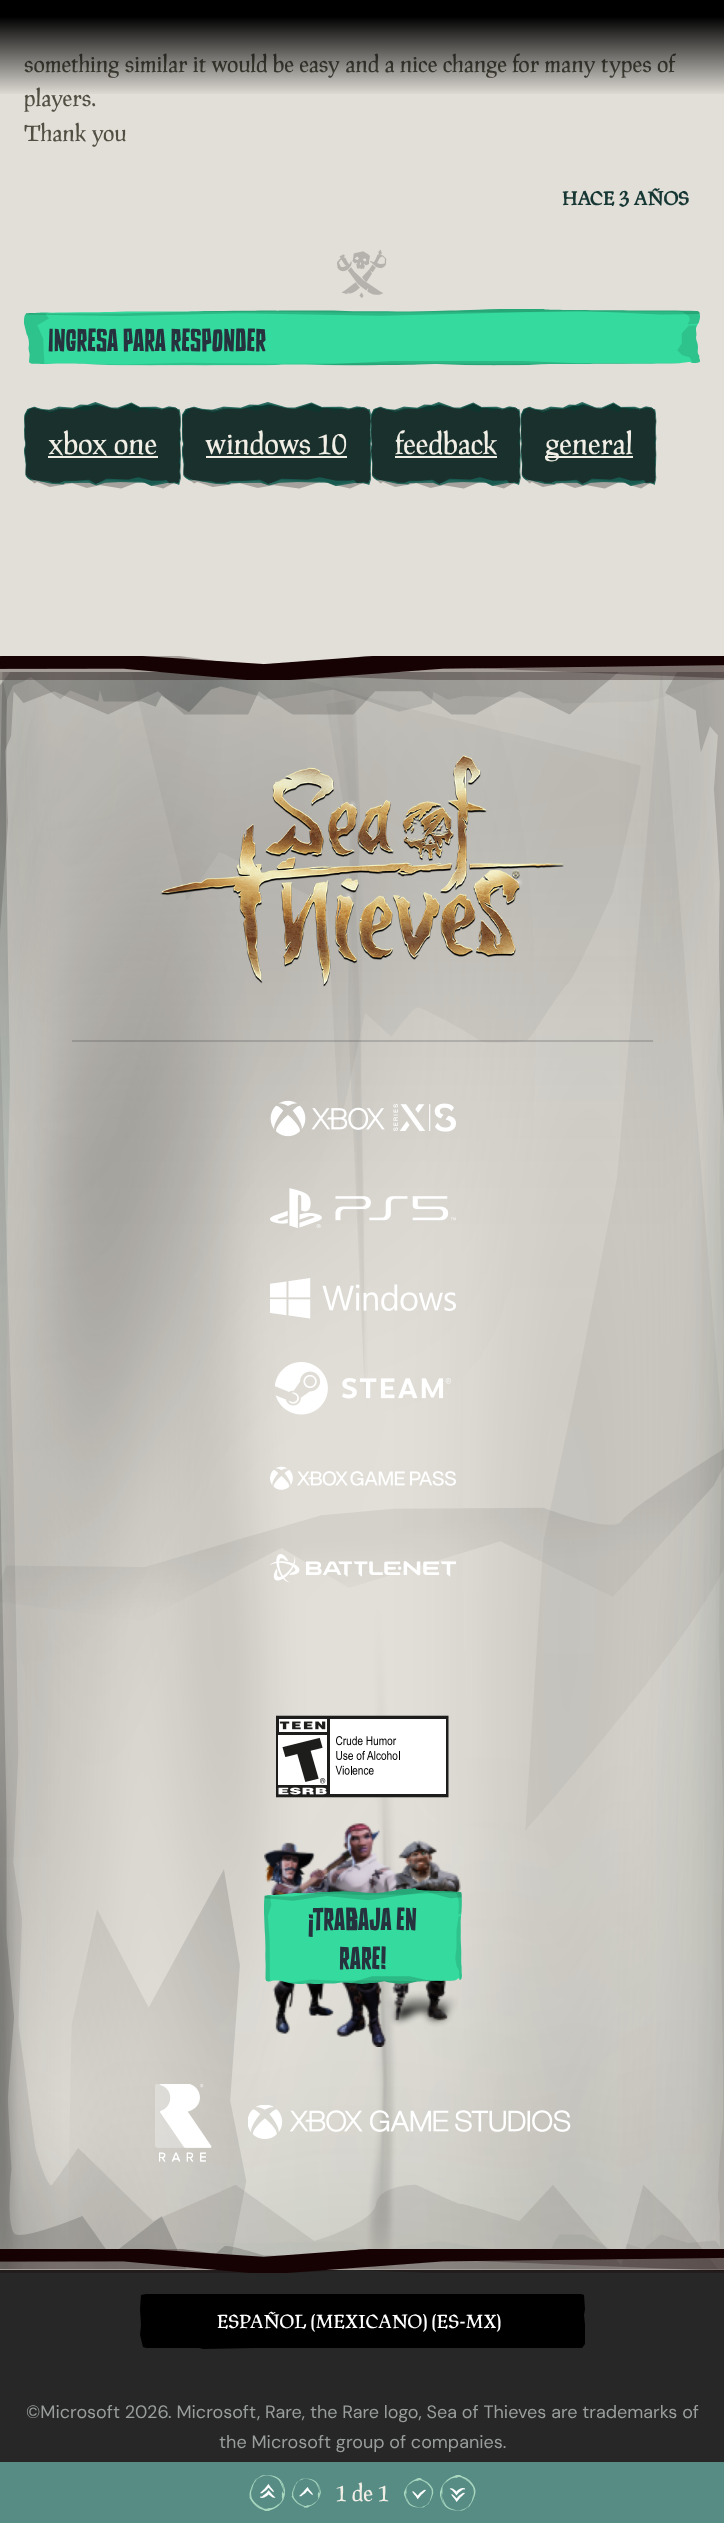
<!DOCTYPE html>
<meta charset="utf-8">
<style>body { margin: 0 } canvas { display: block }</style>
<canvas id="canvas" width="724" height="2523"></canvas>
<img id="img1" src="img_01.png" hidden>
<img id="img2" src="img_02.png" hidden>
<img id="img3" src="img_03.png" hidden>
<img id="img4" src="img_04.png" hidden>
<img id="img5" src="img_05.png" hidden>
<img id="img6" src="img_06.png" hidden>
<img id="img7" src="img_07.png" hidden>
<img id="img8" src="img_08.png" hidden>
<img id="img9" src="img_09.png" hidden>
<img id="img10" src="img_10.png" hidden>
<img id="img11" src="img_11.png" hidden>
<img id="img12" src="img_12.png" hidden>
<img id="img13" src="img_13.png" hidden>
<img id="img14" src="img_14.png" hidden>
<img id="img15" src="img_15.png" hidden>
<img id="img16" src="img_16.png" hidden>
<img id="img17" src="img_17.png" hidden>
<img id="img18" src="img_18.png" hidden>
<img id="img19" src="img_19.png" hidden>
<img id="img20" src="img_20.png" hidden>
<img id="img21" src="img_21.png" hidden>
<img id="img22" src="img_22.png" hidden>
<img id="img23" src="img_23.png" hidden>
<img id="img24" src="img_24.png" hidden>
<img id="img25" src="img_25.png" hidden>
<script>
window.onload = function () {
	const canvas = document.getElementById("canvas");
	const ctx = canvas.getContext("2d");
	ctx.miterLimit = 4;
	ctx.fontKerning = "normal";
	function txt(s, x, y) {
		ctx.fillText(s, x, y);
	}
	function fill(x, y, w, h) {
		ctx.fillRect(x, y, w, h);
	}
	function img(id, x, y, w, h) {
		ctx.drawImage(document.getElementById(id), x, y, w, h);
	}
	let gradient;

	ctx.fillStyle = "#E2DFD8";
	fill(0, 0, 724, 2523);
	img("img1", 337, 249, 50, 49);
	img("img2", 24, 309, 676, 57);
	img("img3", 24, 402, 157, 87);
	ctx.fillStyle = "#F1EEE5";
	fill(48, 456, 110, 2);
	img("img4", 182, 402, 189, 87);
	fill(206, 456, 141, 2);
	img("img5", 371, 402, 150, 87);
	fill(395, 456, 102, 2);
	img("img6", 521, 402, 136, 87);
	fill(545, 456, 88, 2);
	ctx.fillStyle = "#578C85";
	fill(0, 2462, 724, 61);
	img("img7", 249, 2475, 36, 36);
	img("img8", 291, 2478, 30, 30);
	img("img9", 404, 2478, 30, 30);
	img("img10", 440, 2475, 36, 36);
	img("img11", 0, 672, 724, 1597);
	img("img12", 0, 656, 724, 24);
	img("img13", 160, 755, 404, 232);
	ctx.fillStyle = "rgba(50, 51, 53, 0.2)";
	fill(72, 1040, 581, 2);
	img("img14", 270, 1100, 186, 37);
	img("img15", 270, 1188, 186, 40);
	img("img16", 270, 1278, 186, 41);
	img("img17", 275, 1362, 177, 53);
	img("img18", 270, 1466, 186, 24);
	img("img19", 270, 1554, 186, 29);
	img("img20", 276, 1715, 173, 83);
	img("img21", 264, 1823, 197, 224);
	img("img22", 264, 1888, 198, 96);
	img("img23", 155, 2084, 57, 78);
	img("img24", 248, 2105, 323, 34);
	ctx.fillStyle = "#272727";
	fill(0, 2270, 724, 192);
	img("img25", 0, 2249, 724, 24);
	ctx.save();
	ctx.beginPath();
	ctx.rect(140, 2294, 445, 55);
	ctx.clip();
	ctx.fillStyle = "#000000";
	ctx.beginPath();
	ctx.moveTo(582, 2348);
	ctx.lineTo(585, 2344);
	ctx.lineTo(586, 2334);
	ctx.lineTo(584, 2315);
	ctx.lineTo(585, 2309);
	ctx.lineTo(584, 2295);
	ctx.lineTo(581, 2294);
	ctx.lineTo(146, 2294);
	ctx.lineTo(141, 2295);
	ctx.lineTo(140, 2309);
	ctx.lineTo(141, 2325);
	ctx.lineTo(140, 2335);
	ctx.lineTo(143, 2347);
	ctx.lineTo(146, 2348);
	ctx.lineTo(199, 2348);
	ctx.lineTo(203, 2349);
	ctx.lineTo(254, 2348);
	ctx.lineTo(443, 2348);
	ctx.closePath();
	ctx.fill("evenodd");
	ctx.restore();
	ctx.font = "21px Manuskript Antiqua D";
	ctx.fillStyle = "#514F43";
	txt("something similar it would be easy and a nice change for many types of", 24, 72);
	txt("players.", 24, 106);
	gradient = ctx.createLinearGradient(362, -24, 362, 96);
	gradient.addColorStop(0.34, "#000000");
	gradient.addColorStop(1, "rgba(0, 0, 0, 0)");
	ctx.fillStyle = gradient;
	fill(0, 0, 724, 94);
	ctx.fillStyle = "#514F43";
	txt("Thank you", 24, 141);
	ctx.font = "bold 18px Manuskript Antiqua D";
	ctx.fillStyle = "#173734";
	txt("HACE 3 AÑOS", 562, 205);
	ctx.font = "31.5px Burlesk";
	ctx.fillStyle = "#27323F";
	txt("INGRESA PARA RESPONDER", 48, 351);
	ctx.font = "27px Manuskript Antiqua D";
	ctx.fillStyle = "#F1EEE5";
	txt("xbox one", 48, 454);
	txt("windows 10", 205, 454);
	txt("feedback", 395, 454);
	txt("general", 545, 454);
	ctx.font = "21px Manuskript Antiqua D";
	txt("1 de 1", 336, 2501);
	ctx.font = "31.5px Burlesk";
	ctx.fillStyle = "#27323F";
	txt("¡TRABAJA EN", 308, 1930);
	txt("RARE!", 339, 1969);
	ctx.font = "18px Manuskript Antiqua D";
	ctx.fillStyle = "#FFFFFF";
	txt("ESPAÑOL (MEXICANO) (ES-MX)", 217, 2328);
	ctx.font = "18px DM Sans";
	ctx.fillStyle = "#999E9D";
	txt("©Microsoft 2026. Microsoft, Rare, the Rare logo, Sea of Thieves are trademarks of", 26, 2418);
	txt("the Microsoft group of companies.", 219, 2448);
};
</script>
